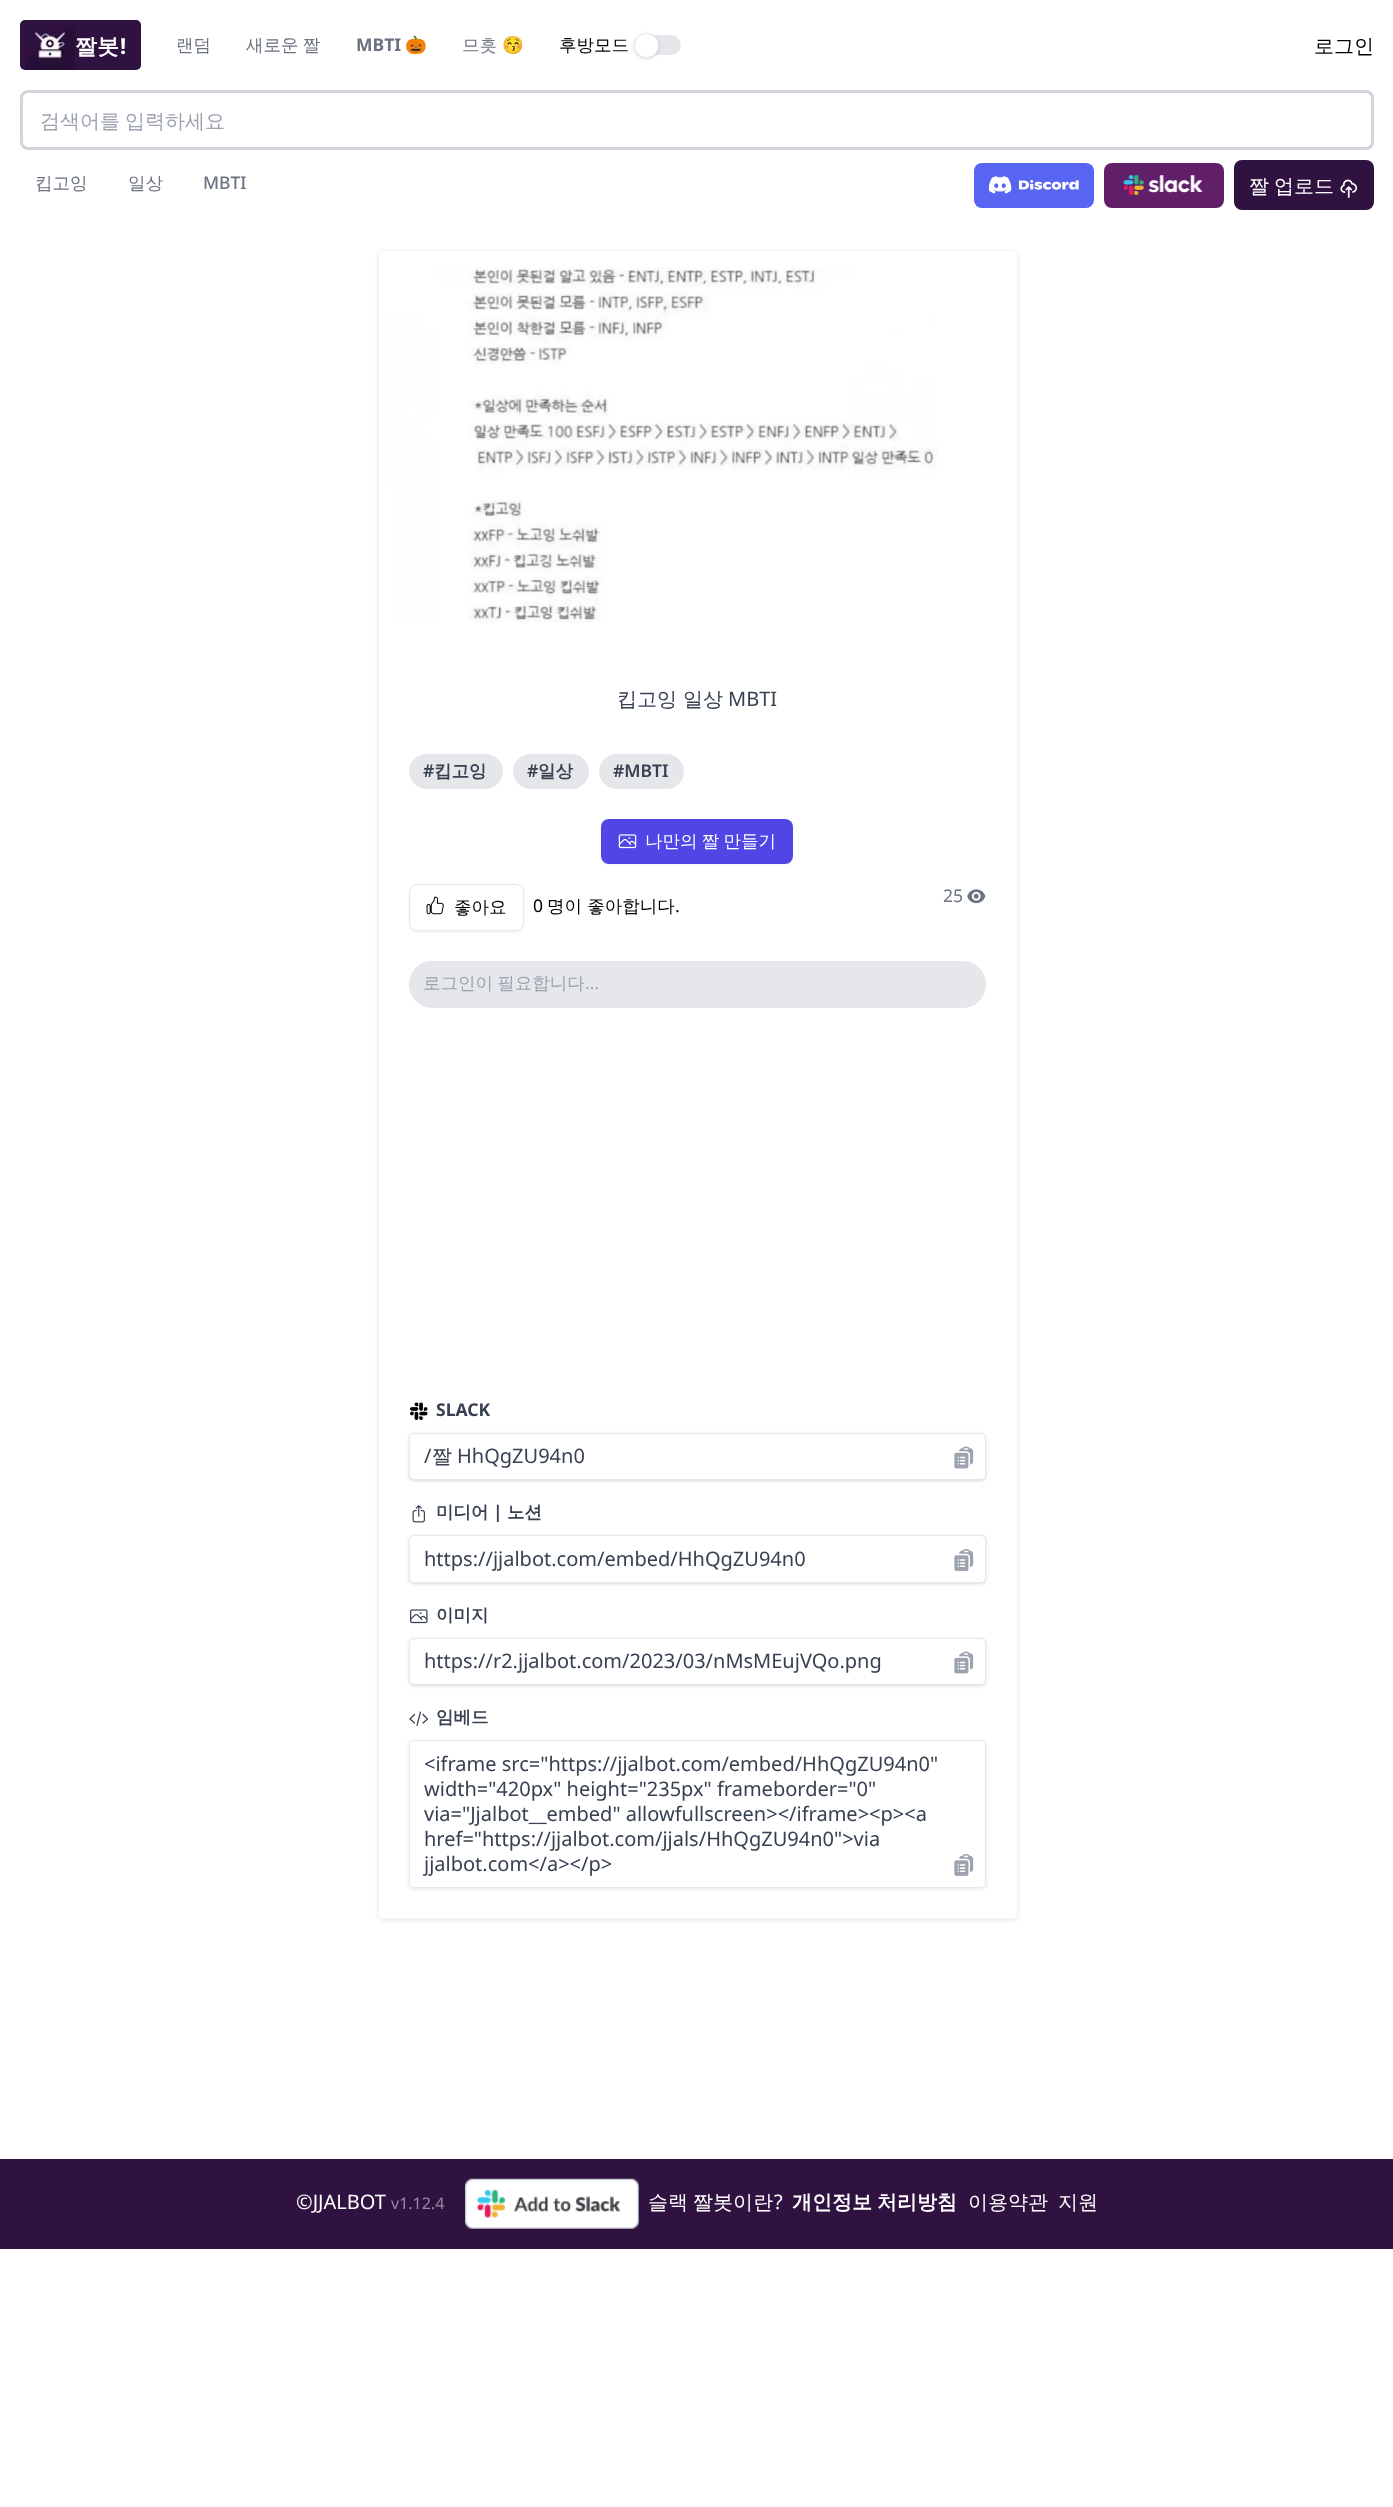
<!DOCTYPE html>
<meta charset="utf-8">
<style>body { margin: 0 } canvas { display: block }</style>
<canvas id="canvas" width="1393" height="2507"></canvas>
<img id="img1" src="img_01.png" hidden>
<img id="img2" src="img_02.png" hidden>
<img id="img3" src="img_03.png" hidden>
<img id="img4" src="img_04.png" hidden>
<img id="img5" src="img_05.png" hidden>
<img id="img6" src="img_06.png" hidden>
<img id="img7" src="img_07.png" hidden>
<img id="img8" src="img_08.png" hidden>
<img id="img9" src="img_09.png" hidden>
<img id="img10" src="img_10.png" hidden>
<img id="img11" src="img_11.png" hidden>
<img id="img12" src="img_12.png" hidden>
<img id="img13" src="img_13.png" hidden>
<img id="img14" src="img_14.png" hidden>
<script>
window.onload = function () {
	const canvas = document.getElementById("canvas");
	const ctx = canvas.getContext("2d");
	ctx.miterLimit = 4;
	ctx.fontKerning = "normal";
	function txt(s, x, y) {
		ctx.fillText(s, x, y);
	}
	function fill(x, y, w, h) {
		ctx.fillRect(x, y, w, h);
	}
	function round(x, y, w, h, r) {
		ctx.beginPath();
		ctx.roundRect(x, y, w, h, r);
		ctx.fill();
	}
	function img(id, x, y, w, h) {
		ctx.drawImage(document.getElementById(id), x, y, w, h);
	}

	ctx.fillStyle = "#FFFFFF";
	fill(0, 0, 1393, 2507);
	ctx.fillStyle = "#2F1240";
	round(20, 20, 121, 50, 5);
	img("img1", 25, 24, 50, 46);
	ctx.fillStyle = "#E5E7EB";
	round(636, 35, 45, 20, 10);
	ctx.fillStyle = "rgba(0, 0, 0, 0.1)";
	ctx.filter = "blur(1px)";
	ctx.beginPath();
	ctx.roundRect(635, 35, 23, 23, 11.5);
	ctx.fill();
	ctx.filter = "none";
	ctx.filter = "blur(2px)";
	ctx.beginPath();
	ctx.roundRect(634, 34, 25, 25, 12.5);
	ctx.fill();
	ctx.filter = "none";
	ctx.fillStyle = "#FFFFFF";
	ctx.beginPath();
	ctx.arc(646.5, 45.5, 12, 0, Math.PI * 2);
	ctx.fill();
	ctx.strokeStyle = "#E5E7EB";
	ctx.stroke();
	ctx.beginPath();
	ctx.roundRect(21.5, 91.5, 1351, 57, 6.5);
	ctx.strokeStyle = "#D1D5DB";
	ctx.lineWidth = 3;
	ctx.stroke();
	ctx.fillStyle = "#5865F2";
	round(974, 163, 120, 45, 8);
	img("img2", 989, 176, 90, 18);
	ctx.fillStyle = "#611F69";
	round(1104, 163, 120, 45, 8);
	img("img3", 1123, 175, 80, 20);
	ctx.fillStyle = "#2F1240";
	round(1234, 160, 140, 50, 8);
	img("img4", 1340, 179, 18, 19);
	ctx.save();
	ctx.beginPath();
	ctx.moveTo(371, 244);
	ctx.lineTo(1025, 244);
	ctx.lineTo(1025, 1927);
	ctx.lineTo(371, 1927);
	ctx.closePath();
	ctx.moveTo(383, 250);
	ctx.lineTo(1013, 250);
	ctx.bezierCurveTo(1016, 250, 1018, 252, 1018, 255);
	ctx.lineTo(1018, 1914);
	ctx.bezierCurveTo(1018, 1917, 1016, 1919, 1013, 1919);
	ctx.lineTo(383, 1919);
	ctx.bezierCurveTo(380, 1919, 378, 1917, 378, 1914);
	ctx.lineTo(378, 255);
	ctx.bezierCurveTo(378, 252, 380, 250, 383, 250);
	ctx.closePath();
	ctx.clip("evenodd");
	ctx.fillStyle = "rgba(0, 0, 0, 0.1)";
	ctx.filter = "blur(2px)";
	ctx.beginPath();
	ctx.roundRect(378, 251, 640, 1669, 5);
	ctx.fill();
	ctx.filter = "none";
	ctx.restore();
	ctx.beginPath();
	ctx.roundRect(378.5, 250.5, 639, 1668, 4.5);
	ctx.strokeStyle = "#F3F4F6";
	ctx.lineWidth = 1;
	ctx.stroke();
	img("img5", 379, 252, 558, 371);
	ctx.fillStyle = "#E5E7EB";
	round(409, 754, 94, 35, 17.5);
	round(513, 754, 76, 35, 17.5);
	round(599, 754, 85, 35, 17.5);
	ctx.fillStyle = "rgba(0, 0, 0, 0.05)";
	ctx.filter = "blur(1px)";
	ctx.beginPath();
	ctx.roundRect(601, 820, 192, 45, 8);
	ctx.fill();
	ctx.filter = "none";
	ctx.fillStyle = "#4F46E5";
	round(601, 819, 192, 45, 8);
	img("img6", 618, 834, 19, 15);
	img("img7", 967, 889, 19, 15);
	ctx.save();
	ctx.beginPath();
	ctx.moveTo(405, 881);
	ctx.lineTo(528, 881);
	ctx.lineTo(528, 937);
	ctx.lineTo(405, 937);
	ctx.closePath();
	ctx.moveTo(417, 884);
	ctx.lineTo(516, 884);
	ctx.bezierCurveTo(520.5, 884, 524, 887.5, 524, 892);
	ctx.lineTo(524, 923);
	ctx.bezierCurveTo(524, 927.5, 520.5, 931, 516, 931);
	ctx.lineTo(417, 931);
	ctx.bezierCurveTo(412.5, 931, 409, 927.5, 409, 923);
	ctx.lineTo(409, 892);
	ctx.bezierCurveTo(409, 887.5, 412.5, 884, 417, 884);
	ctx.closePath();
	ctx.clip("evenodd");
	ctx.fillStyle = "rgba(0, 0, 0, 0.05)";
	ctx.filter = "blur(1px)";
	ctx.beginPath();
	ctx.roundRect(409, 885, 115, 48, 8);
	ctx.fill();
	ctx.filter = "none";
	ctx.restore();
	ctx.beginPath();
	ctx.roundRect(409.5, 884.5, 114, 46, 7.5);
	ctx.strokeStyle = "#E5E7EB";
	ctx.stroke();
	img("img8", 426, 896, 18, 19);
	ctx.fillStyle = "#E5E7EB";
	round(409, 961, 577, 47, 23);
	img("img9", 410, 1402, 18, 18);
	ctx.fillStyle = "rgba(0, 0, 0, 0.1)";
	ctx.filter = "blur(1px)";
	ctx.beginPath();
	ctx.roundRect(410, 1435, 575, 45, 4);
	ctx.fill();
	ctx.filter = "none";
	ctx.filter = "blur(2px)";
	ctx.beginPath();
	ctx.roundRect(409, 1434, 577, 47, 5);
	ctx.fill();
	ctx.filter = "none";
	ctx.fillStyle = "#FFFFFF";
	ctx.beginPath();
	ctx.roundRect(409.5, 1433.5, 576, 46, 4.5);
	ctx.fill();
	ctx.stroke();
	img("img10", 954, 1446, 20, 23);
	img("img11", 412, 1505, 13, 18);
	ctx.fillStyle = "rgba(0, 0, 0, 0.1)";
	ctx.filter = "blur(1px)";
	ctx.beginPath();
	ctx.roundRect(410, 1538, 575, 45, 4);
	ctx.fill();
	ctx.filter = "none";
	ctx.filter = "blur(2px)";
	ctx.beginPath();
	ctx.roundRect(409, 1536, 577, 48, 5);
	ctx.fill();
	ctx.filter = "none";
	ctx.fillStyle = "#FFFFFF";
	ctx.beginPath();
	ctx.roundRect(409.5, 1535.5, 576, 47, 4.5);
	ctx.fill();
	ctx.stroke();
	img("img12", 954, 1549, 20, 22);
	img("img13", 410, 1609, 18, 15);
	ctx.fillStyle = "rgba(0, 0, 0, 0.1)";
	ctx.filter = "blur(1px)";
	ctx.beginPath();
	ctx.roundRect(410, 1640, 575, 45, 4);
	ctx.fill();
	ctx.filter = "none";
	ctx.filter = "blur(2px)";
	ctx.beginPath();
	ctx.roundRect(409, 1639, 577, 47, 5);
	ctx.fill();
	ctx.filter = "none";
	ctx.fillStyle = "#FFFFFF";
	ctx.beginPath();
	ctx.roundRect(409.5, 1638.5, 576, 46, 4.5);
	ctx.fill();
	ctx.stroke();
	img("img10", 954, 1651, 20, 23);
	ctx.beginPath();
	ctx.moveTo(423, 1714.5);
	ctx.lineTo(427.5, 1719);
	ctx.lineTo(423, 1723);
	ctx.moveTo(414.5, 1723);
	ctx.lineTo(410, 1719);
	ctx.lineTo(414.5, 1714.5);
	ctx.moveTo(420.5, 1712);
	ctx.lineTo(417, 1725.5);
	ctx.strokeStyle = "#374151";
	ctx.lineWidth = 1.2;
	ctx.lineCap = "round";
	ctx.lineJoin = "round";
	ctx.stroke();
	ctx.save();
	ctx.beginPath();
	ctx.moveTo(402, 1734);
	ctx.lineTo(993, 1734);
	ctx.lineTo(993, 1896);
	ctx.lineTo(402, 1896);
	ctx.closePath();
	ctx.moveTo(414, 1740);
	ctx.lineTo(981, 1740);
	ctx.bezierCurveTo(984, 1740, 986, 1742, 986, 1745);
	ctx.lineTo(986, 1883);
	ctx.bezierCurveTo(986, 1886, 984, 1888, 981, 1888);
	ctx.lineTo(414, 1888);
	ctx.bezierCurveTo(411, 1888, 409, 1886, 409, 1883);
	ctx.lineTo(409, 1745);
	ctx.bezierCurveTo(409, 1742, 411, 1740, 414, 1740);
	ctx.closePath();
	ctx.clip("evenodd");
	ctx.fillStyle = "rgba(0, 0, 0, 0.1)";
	ctx.filter = "blur(2px)";
	ctx.beginPath();
	ctx.roundRect(409, 1741, 577, 148, 5);
	ctx.fill();
	ctx.filter = "none";
	ctx.restore();
	ctx.beginPath();
	ctx.roundRect(409.5, 1740.5, 576, 147, 4.5);
	ctx.strokeStyle = "#E5E7EB";
	ctx.lineWidth = 1;
	ctx.lineJoin = "miter";
	ctx.stroke();
	img("img12", 954, 1854, 20, 22);
	ctx.fillStyle = "#2F1240";
	fill(0, 2159, 1393, 90);
	img("img14", 465, 2178, 174, 51);
	ctx.font = "bold 22px WenQuanYi Zen Hei";
	ctx.fillStyle = "#FFFFFF";
	txt("짤봇", 75, 54);
	ctx.font = "bold 22px Noto Sans";
	txt("!", 120, 54);
	ctx.font = "500 17.5px WenQuanYi Zen Hei";
	ctx.fillStyle = "#6B7280";
	txt("랜덤", 176, 51);
	ctx.wordSpacing = "-1px";
	txt("새로운 짤", 246, 51);
	ctx.wordSpacing = "0px";
	ctx.font = "bold 17.5px Noto Sans";
	txt("MBTI", 356, 51);
	ctx.font = "bold 17.5px Noto Color Emoji";
	txt("🎃", 405, 51);
	ctx.font = "500 17.5px WenQuanYi Zen Hei";
	txt("므흣", 462, 51);
	ctx.font = "17.5px Noto Color Emoji";
	txt("😚", 502, 51);
	ctx.font = "500 17.5px WenQuanYi Zen Hei";
	ctx.fillStyle = "#000000";
	txt("후방모드", 559, 51);
	ctx.font = "500 20px WenQuanYi Zen Hei";
	txt("로그인", 1314, 53);
	ctx.wordSpacing = "-1px";
	ctx.fillStyle = "#9CA3AF";
	txt("검색어를 입력하세요", 40, 128);
	ctx.wordSpacing = "0px";
	ctx.font = "500 17.5px WenQuanYi Zen Hei";
	ctx.fillStyle = "#6B7280";
	txt("킵고잉", 35, 189);
	txt("일상", 128, 189);
	ctx.font = "500 17.5px Noto Sans";
	txt("MBTI", 203, 189);
	ctx.wordSpacing = "-1px";
	ctx.font = "500 20px WenQuanYi Zen Hei";
	ctx.fillStyle = "#FFFFFF";
	txt("짤 업로드", 1249, 193);
	ctx.wordSpacing = "0px";
	ctx.fillStyle = "#374151";
	txt("킵고잉 일상", 617, 706);
	ctx.font = "20px Noto Sans";
	txt("MBTI", 728, 706);
	ctx.font = "600 17.5px Noto Sans";
	txt("#", 423, 777);
	ctx.font = "bold 17.5px WenQuanYi Zen Hei";
	txt("킵고잉", 434, 777);
	ctx.font = "600 17.5px Noto Sans";
	txt("#", 527, 777);
	ctx.font = "bold 17.5px WenQuanYi Zen Hei";
	txt("일상", 538, 777);
	ctx.font = "600 17.5px Noto Sans";
	txt("#MBTI", 613, 777);
	ctx.wordSpacing = "-1px";
	ctx.font = "500 17.5px WenQuanYi Zen Hei";
	ctx.fillStyle = "#FFFFFF";
	txt("나만의 짤 만들기", 645, 847);
	ctx.wordSpacing = "0px";
	ctx.font = "17.5px Noto Sans";
	ctx.fillStyle = "#6B7280";
	txt("25", 943, 902);
	ctx.font = "500 17.5px WenQuanYi Zen Hei";
	ctx.fillStyle = "#000000";
	txt("좋아요", 454, 913);
	ctx.font = "17.5px Noto Sans";
	txt("0", 533, 912);
	ctx.font = "500 17.5px WenQuanYi Zen Hei";
	txt("명이 좋아합니다", 547, 912);
	ctx.font = "17.5px Noto Sans";
	txt(".", 675, 912);
	ctx.wordSpacing = "-1px";
	ctx.font = "500 17.5px WenQuanYi Zen Hei";
	ctx.fillStyle = "#9CA3AF";
	txt("로그인이 필요합니다", 423, 989);
	ctx.wordSpacing = "0px";
	ctx.font = "17.5px Noto Sans";
	txt("...", 585, 989);
	ctx.font = "bold 17.5px Noto Sans";
	ctx.fillStyle = "#374151";
	txt("SLACK", 436, 1416);
	ctx.font = "20px Noto Sans";
	txt("/", 424, 1463);
	ctx.font = "500 20px WenQuanYi Zen Hei";
	txt("짤", 432, 1463);
	ctx.font = "20px Noto Sans";
	txt("HhQgZU94n0", 457, 1463);
	ctx.font = "bold 17.5px WenQuanYi Zen Hei";
	txt("미디어", 436, 1518);
	ctx.font = "bold 17.5px Noto Sans";
	txt("|", 493, 1518);
	ctx.font = "bold 17.5px WenQuanYi Zen Hei";
	txt("노션", 507, 1518);
	ctx.font = "20px Noto Sans";
	txt("https://jjalbot.com/embed/HhQgZU94n0", 424, 1566);
	ctx.font = "bold 17.5px WenQuanYi Zen Hei";
	txt("이미지", 436, 1621);
	ctx.font = "20px Noto Sans";
	txt("https://r2.jjalbot.com/2023/03/nMsMEujVQo.png", 424, 1668);
	ctx.font = "bold 17.5px WenQuanYi Zen Hei";
	txt("임베드", 436, 1723);
	ctx.font = "20px Noto Sans";
	txt("<iframe src=\"https://jjalbot.com/embed/HhQgZU94n0\"", 424, 1771);
	txt("width=\"420px\" height=\"235px\" frameborder=\"0\"", 424, 1796);
	txt("via=\"Jjalbot__embed\" allowfullscreen><\/iframe><p><a", 424, 1821);
	txt("href=\"https://jjalbot.com/jjals/HhQgZU94n0\">via", 424, 1846);
	txt("jjalbot.com<\/a><\/p>", 424, 1871);
	ctx.fillStyle = "#FFFFFF";
	txt("©JJALBOT", 296, 2209);
	ctx.font = "16px Noto Sans";
	ctx.fillStyle = "#9789A0";
	txt("v1.12.4", 391, 2209);
	ctx.wordSpacing = "-1px";
	ctx.font = "500 20px WenQuanYi Zen Hei";
	ctx.fillStyle = "#FFFFFF";
	txt("슬랙 짤봇이란", 648, 2209);
	ctx.wordSpacing = "0px";
	ctx.font = "20px Noto Sans";
	txt("?", 774, 2209);
	ctx.wordSpacing = "-1px";
	ctx.font = "bold 20px WenQuanYi Zen Hei";
	txt("개인정보 처리방침", 792, 2209);
	ctx.wordSpacing = "0px";
	ctx.font = "500 20px WenQuanYi Zen Hei";
	txt("이용약관", 968, 2209);
	txt("지원", 1058, 2209);
};
</script>
